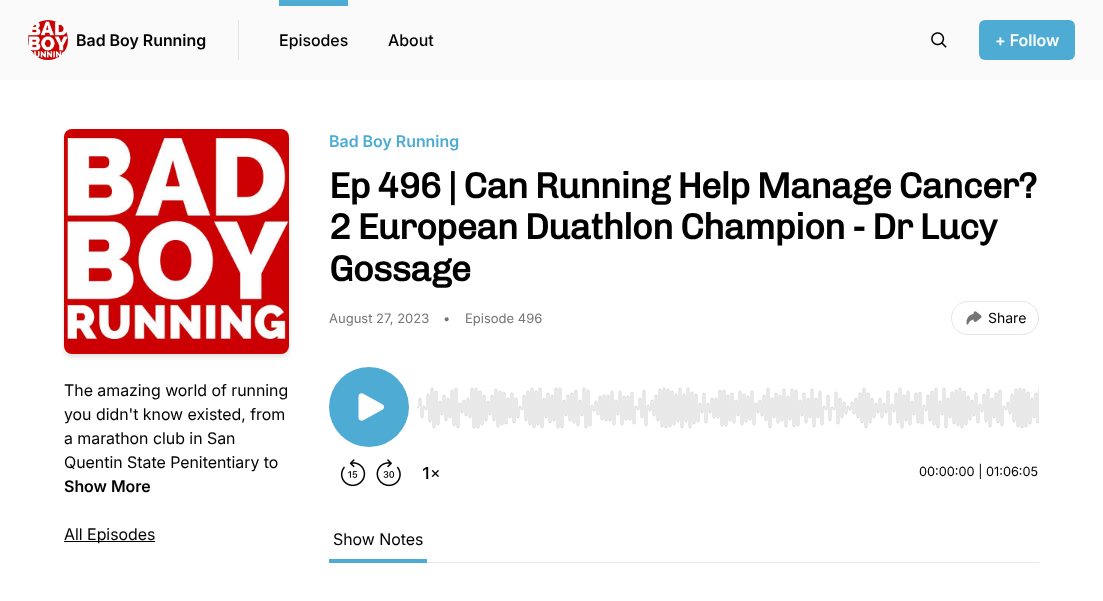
<!DOCTYPE html>
<meta charset="utf-8">
<style>body { margin: 0 } canvas { display: block }</style>
<canvas id="canvas" width="1103" height="601"></canvas>
<img id="img1" src="img_01.png" hidden>
<img id="img2" src="img_02.png" hidden>
<img id="img3" src="img_03.png" hidden>
<img id="img4" src="img_04.png" hidden>
<img id="img5" src="img_05.png" hidden>
<img id="img6" src="img_06.png" hidden>
<img id="img7" src="img_07.png" hidden>
<img id="img8" src="img_08.png" hidden>
<img id="img9" src="img_09.png" hidden>
<script>
window.onload = function () {
	const canvas = document.getElementById("canvas");
	const ctx = canvas.getContext("2d");
	ctx.miterLimit = 4;
	ctx.fontKerning = "normal";
	function txt(s, x, y) {
		ctx.fillText(s, x, y);
	}
	function fill(x, y, w, h) {
		ctx.fillRect(x, y, w, h);
	}
	function round(x, y, w, h, r) {
		ctx.beginPath();
		ctx.roundRect(x, y, w, h, r);
		ctx.fill();
	}
	function img(id, x, y, w, h) {
		ctx.drawImage(document.getElementById(id), x, y, w, h);
	}

	ctx.fillStyle = "#FFFFFF";
	fill(0, 0, 1103, 601);
	ctx.fillStyle = "#FAFAFA";
	fill(0, 0, 1103, 80);
	ctx.fillStyle = "#E4E5E6";
	fill(238, 20, 1, 40);
	img("img1", 28, 20, 40, 40);
	ctx.fillStyle = "#4EACD4";
	fill(279, 0, 69, 6);
	img("img2", 931, 32, 16, 16);
	round(979, 20, 96, 40, 6);
	img("img3", 62, 129, 229, 231);
	ctx.fillStyle = "#000000";
	fill(64, 541, 91, 1);
	ctx.beginPath();
	ctx.roundRect(951.5, 301.5, 87, 33, 16.5);
	ctx.strokeStyle = "#E4E5E6";
	ctx.stroke();
	img("img4", 966, 311, 16, 14);
	img("img5", 340, 459, 26, 28);
	img("img6", 376, 459, 25, 28);
	img("img7", 423, 467, 16, 12);
	ctx.fillStyle = "#4EACD4";
	ctx.beginPath();
	ctx.arc(369, 407, 40, 0, Math.PI * 2);
	ctx.fill();
	img("img8", 358, 393, 26, 28);
	img("img9", 417, 387, 622, 42);
	ctx.fillStyle = "#E4E5E6";
	fill(427, 562, 612, 1);
	ctx.fillStyle = "#4EACD4";
	fill(329, 559, 98, 4);
	ctx.font = "600 16px Inter";
	ctx.fillStyle = "#000000";
	txt("Bad Boy Running", 76, 46);
	ctx.font = "500 16px Inter";
	txt("Episodes", 279, 46);
	txt("About", 388, 46);
	ctx.font = "600 16px Inter";
	ctx.fillStyle = "#FFFFFF";
	txt("+ Follow", 995, 46);
	ctx.font = "16px Inter";
	ctx.fillStyle = "#000000";
	txt("The amazing world of running", 64, 396);
	txt("you didn't know existed, from", 64, 420);
	txt("a marathon club in San", 64, 444);
	txt("Quentin State Penitentiary to", 64, 468);
	ctx.font = "600 16px Inter";
	txt("Show More", 64, 492);
	ctx.font = "16px Inter";
	txt("All Episodes", 64, 540);
	ctx.font = "600 16px Inter";
	ctx.fillStyle = "#4EACD4";
	txt("Bad Boy Running", 329, 147);
	ctx.letterSpacing = "-0.9px";
	ctx.font = "bold 36px Chivo";
	ctx.fillStyle = "#000000";
	txt("Ep 496 | Can Running Help Manage Cancer?", 329, 198);
	txt("2 European Duathlon Champion - Dr Lucy", 329, 239);
	txt("Gossage", 329, 281);
	ctx.letterSpacing = "0px";
	ctx.font = "13px 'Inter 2'";
	ctx.fillStyle = "#747576";
	txt("August 27, 2023", 329, 323);
	txt("•", 443, 323);
	txt("Episode 496", 465, 323);
	ctx.font = "14px 'Inter 2'";
	ctx.fillStyle = "#000000";
	txt("Share", 988, 323);
	ctx.font = "12.75px 'Inter 2'";
	txt("00:00:00 | 01:06:05", 919, 476);
	ctx.font = "16px Inter";
	txt("Show Notes", 333, 545);
};
</script>
